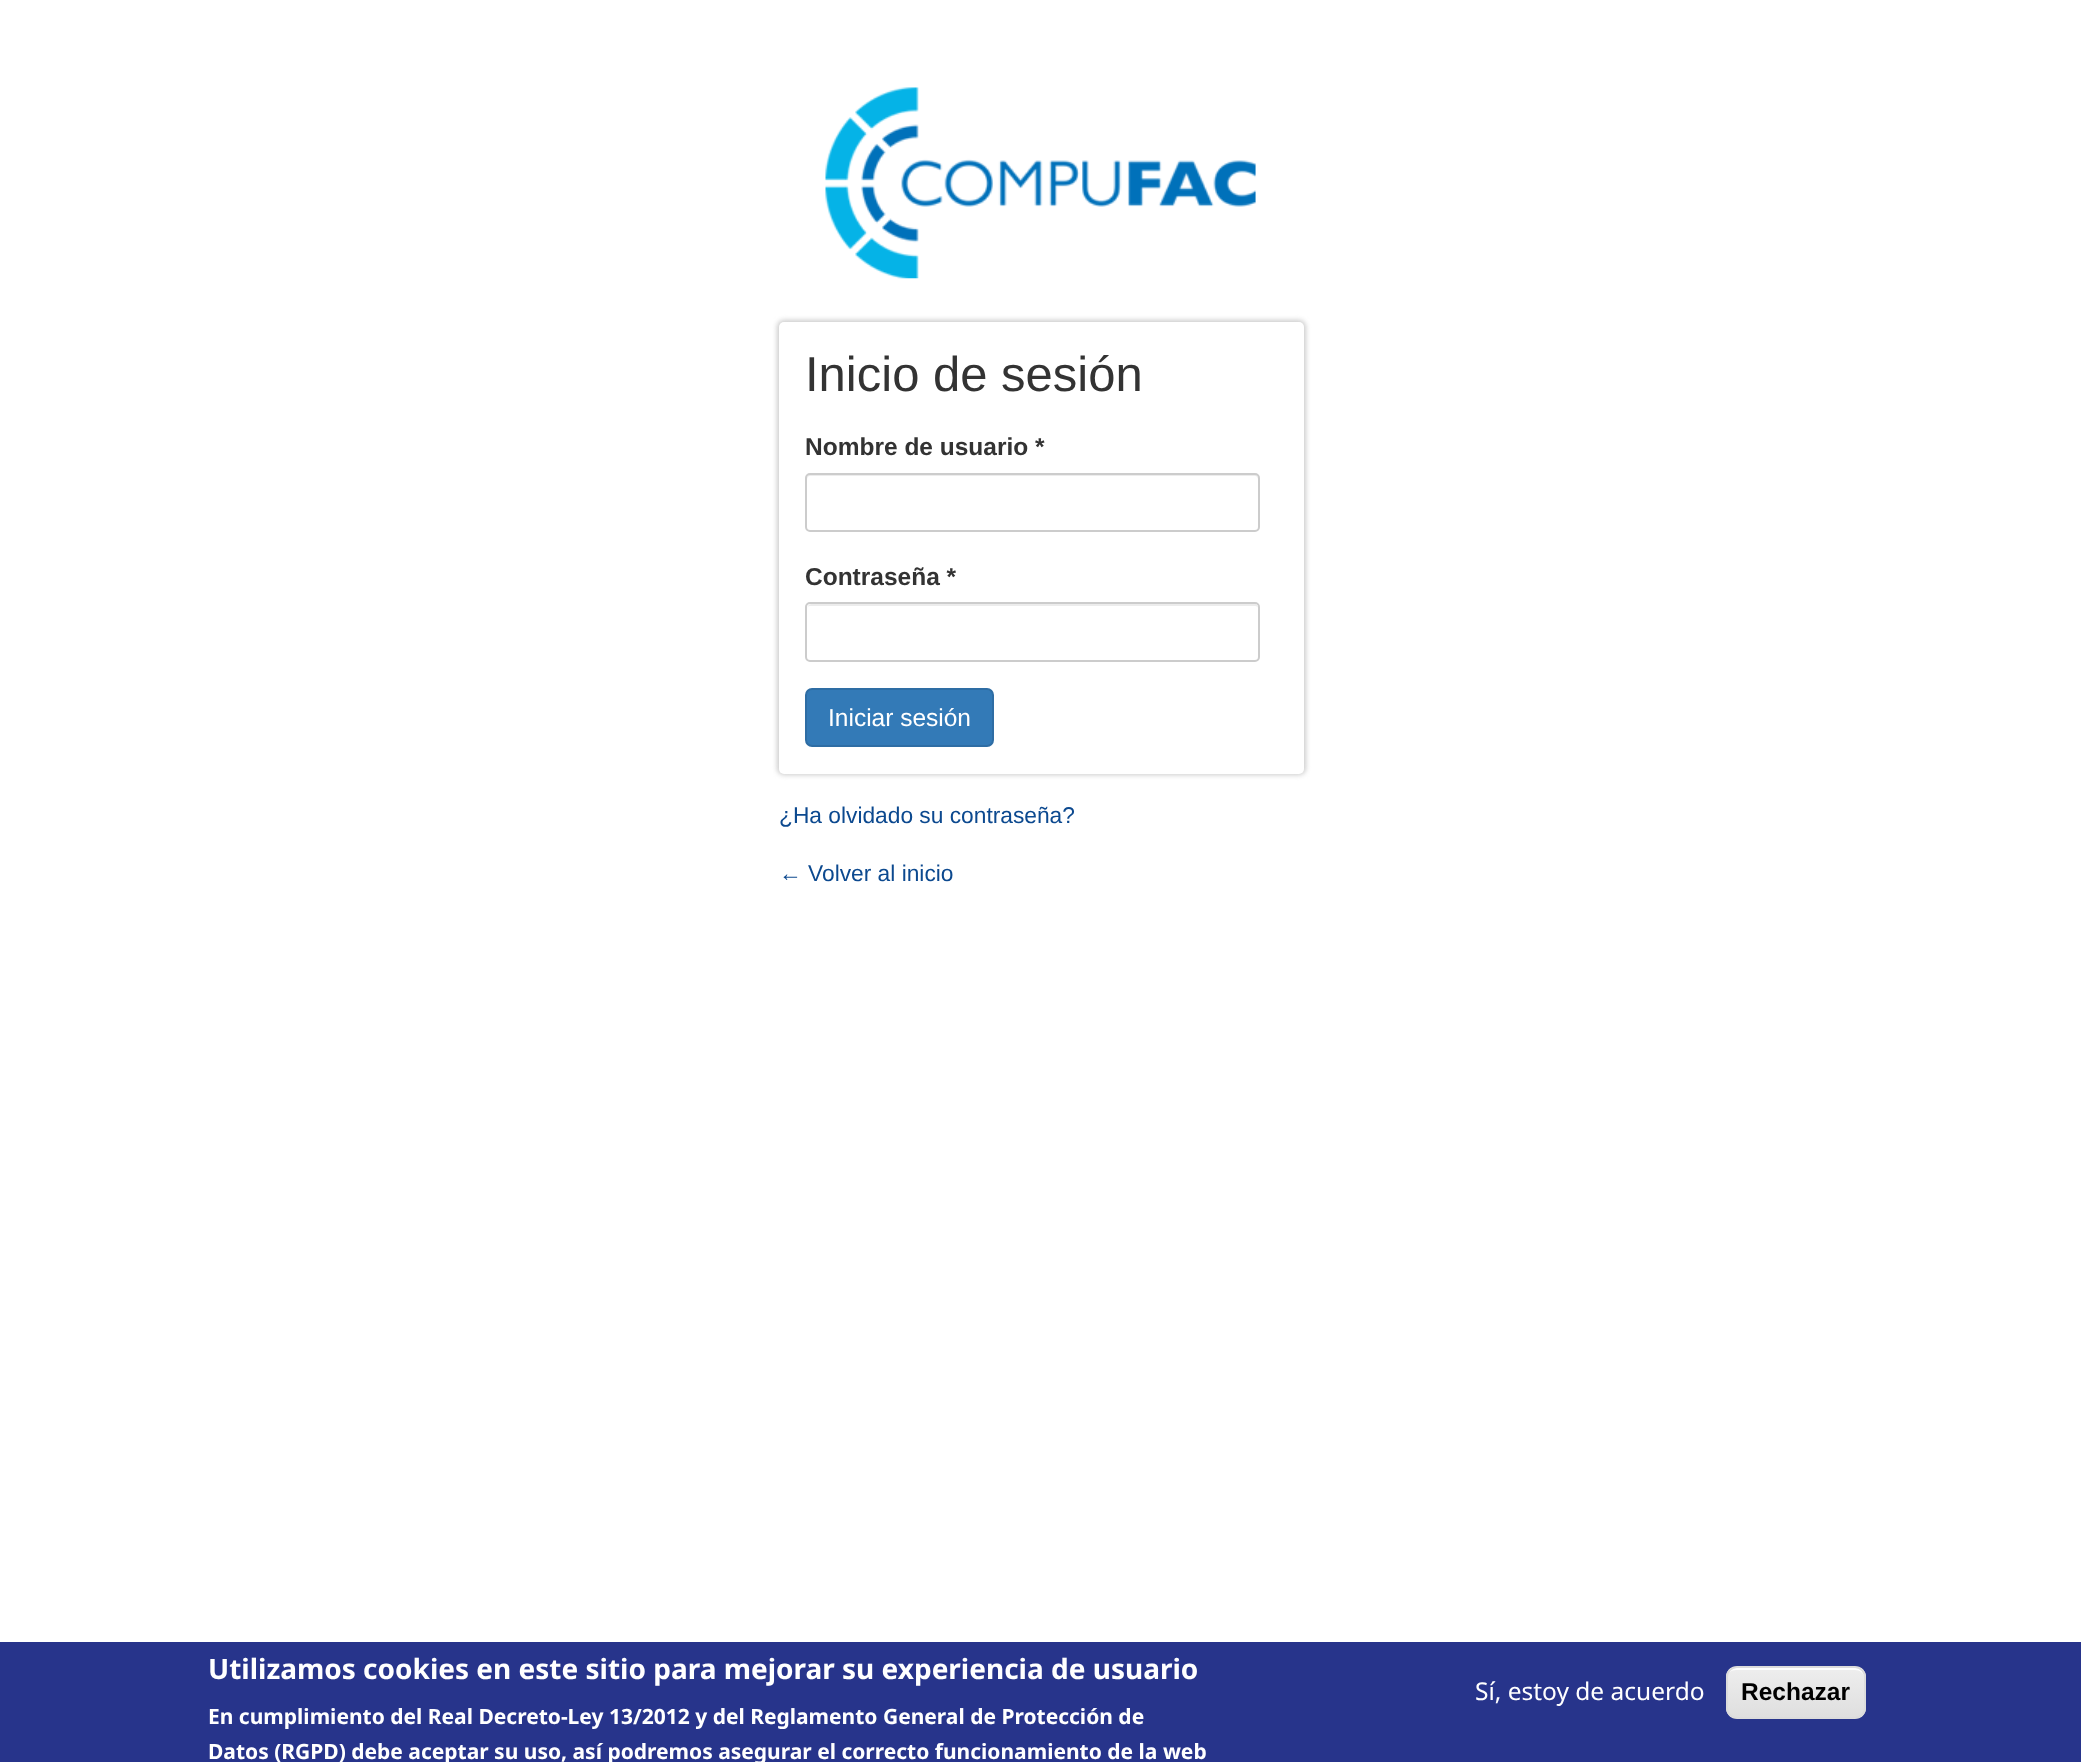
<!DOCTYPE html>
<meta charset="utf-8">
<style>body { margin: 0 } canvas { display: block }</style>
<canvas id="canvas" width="2081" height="1762"></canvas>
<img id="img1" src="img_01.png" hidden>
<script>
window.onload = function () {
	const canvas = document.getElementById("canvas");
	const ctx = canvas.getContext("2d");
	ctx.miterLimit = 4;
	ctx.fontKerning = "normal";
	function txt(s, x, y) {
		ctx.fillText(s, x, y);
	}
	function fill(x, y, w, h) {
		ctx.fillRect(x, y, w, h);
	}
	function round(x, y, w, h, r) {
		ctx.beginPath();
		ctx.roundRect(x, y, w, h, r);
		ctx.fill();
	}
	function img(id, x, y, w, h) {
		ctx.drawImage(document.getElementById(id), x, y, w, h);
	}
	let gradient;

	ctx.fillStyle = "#FFFFFF";
	fill(0, 0, 2081, 1762);
	img("img1", 825, 87, 431, 192);
	ctx.fillStyle = "#CCCCCC";
	ctx.filter = "blur(2.5px)";
	ctx.beginPath();
	ctx.roundRect(777, 320, 529, 455, 7);
	ctx.fill();
	ctx.filter = "none";
	ctx.fillStyle = "#FFFFFF";
	round(779, 322, 525, 452, 5);
	ctx.fillStyle = "#ECECEC";
	ctx.beginPath();
	ctx.moveTo(810, 476);
	ctx.lineTo(1255, 476);
	ctx.bezierCurveTo(1257, 476, 1258, 478, 1258, 480);
	ctx.lineTo(1258, 478);
	ctx.bezierCurveTo(1258, 476, 1256, 474, 1254, 474);
	ctx.lineTo(811, 474);
	ctx.bezierCurveTo(809, 474, 807, 476, 807, 478);
	ctx.lineTo(807, 480);
	ctx.bezierCurveTo(807, 478, 808, 476, 810, 476);
	ctx.closePath();
	ctx.fill();
	ctx.beginPath();
	ctx.roundRect(806, 474, 453, 57, 4);
	ctx.strokeStyle = "#CCCCCC";
	ctx.lineWidth = 2;
	ctx.stroke();
	ctx.beginPath();
	ctx.moveTo(810, 606);
	ctx.lineTo(1255, 606);
	ctx.bezierCurveTo(1257, 606, 1258, 607, 1258, 609);
	ctx.bezierCurveTo(1258, 606, 1257, 604, 1254, 604);
	ctx.lineTo(811, 604);
	ctx.lineTo(809, 605);
	ctx.lineTo(808, 606);
	ctx.lineTo(807, 609);
	ctx.bezierCurveTo(807, 607, 808, 606, 810, 606);
	ctx.closePath();
	ctx.fill();
	ctx.beginPath();
	ctx.roundRect(806, 603, 453, 58, 4);
	ctx.stroke();
	ctx.fillStyle = "#337AB7";
	ctx.beginPath();
	ctx.roundRect(806, 689, 187, 57, 6);
	ctx.fill();
	ctx.strokeStyle = "#2E6DA4";
	ctx.stroke();
	ctx.fillStyle = "#27348B";
	fill(0, 1642, 2081, 120);
	ctx.save();
	ctx.beginPath();
	ctx.roundRect(1726, 1666, 140, 53, 11);
	ctx.clip();
	gradient = ctx.createLinearGradient(1796, 1668, 1796, 1717);
	gradient.addColorStop(0.05, "#EDEDED");
	gradient.addColorStop(1, "#DFDFDF");
	ctx.fillStyle = gradient;
	fill(1726, 1668, 140, 49);
	ctx.restore();
	ctx.fillStyle = "#FFFFFF";
	ctx.beginPath();
	ctx.moveTo(1736, 1670);
	ctx.lineTo(1855, 1670);
	ctx.bezierCurveTo(1860, 1670, 1864, 1673, 1864, 1678);
	ctx.bezierCurveTo(1864, 1663, 1844, 1668, 1835, 1668);
	ctx.lineTo(1756, 1668);
	ctx.bezierCurveTo(1747, 1668, 1727, 1663, 1727, 1678);
	ctx.bezierCurveTo(1727, 1673, 1731, 1670, 1736, 1670);
	ctx.closePath();
	ctx.fill();
	ctx.beginPath();
	ctx.roundRect(1727, 1667, 138, 51, 10);
	ctx.strokeStyle = "#DCDCDC";
	ctx.stroke();
	ctx.font = "49px Liberation Sans";
	ctx.fillStyle = "#333333";
	txt("Inicio de sesión", 805, 391);
	ctx.font = "bold 24.5px Liberation Sans";
	txt("Nombre de usuario *", 805, 455);
	txt("Contraseña *", 805, 585);
	ctx.font = "24.5px Liberation Sans";
	ctx.fillStyle = "#FFFFFF";
	txt("Iniciar sesión", 828, 726);
	ctx.font = "22.75px Liberation Sans";
	ctx.fillStyle = "#0C498F";
	txt("¿Ha olvidado su contraseña?", 779, 823);
	txt("← Volver al inicio", 779, 881);
	ctx.font = "bold 28px Noto Sans";
	ctx.fillStyle = "#FFFFFF";
	txt("Utilizamos cookies en este sitio para mejorar su experiencia de usuario", 208, 1679);
	ctx.font = "bold 21px Noto Sans";
	txt("En cumplimiento del Real Decreto-Ley 13/2012 y del Reglamento General de Protección de", 208, 1724);
	txt("Datos (RGPD) debe aceptar su uso, así podremos asegurar el correcto funcionamiento de la web", 208, 1759);
	ctx.font = "24.5px Noto Sans";
	txt("Sí, estoy de acuerdo", 1475, 1700);
	ctx.font = "bold 24.5px Liberation Sans";
	ctx.fillStyle = "#000000";
	txt("Rechazar", 1741, 1700);
};
</script>
